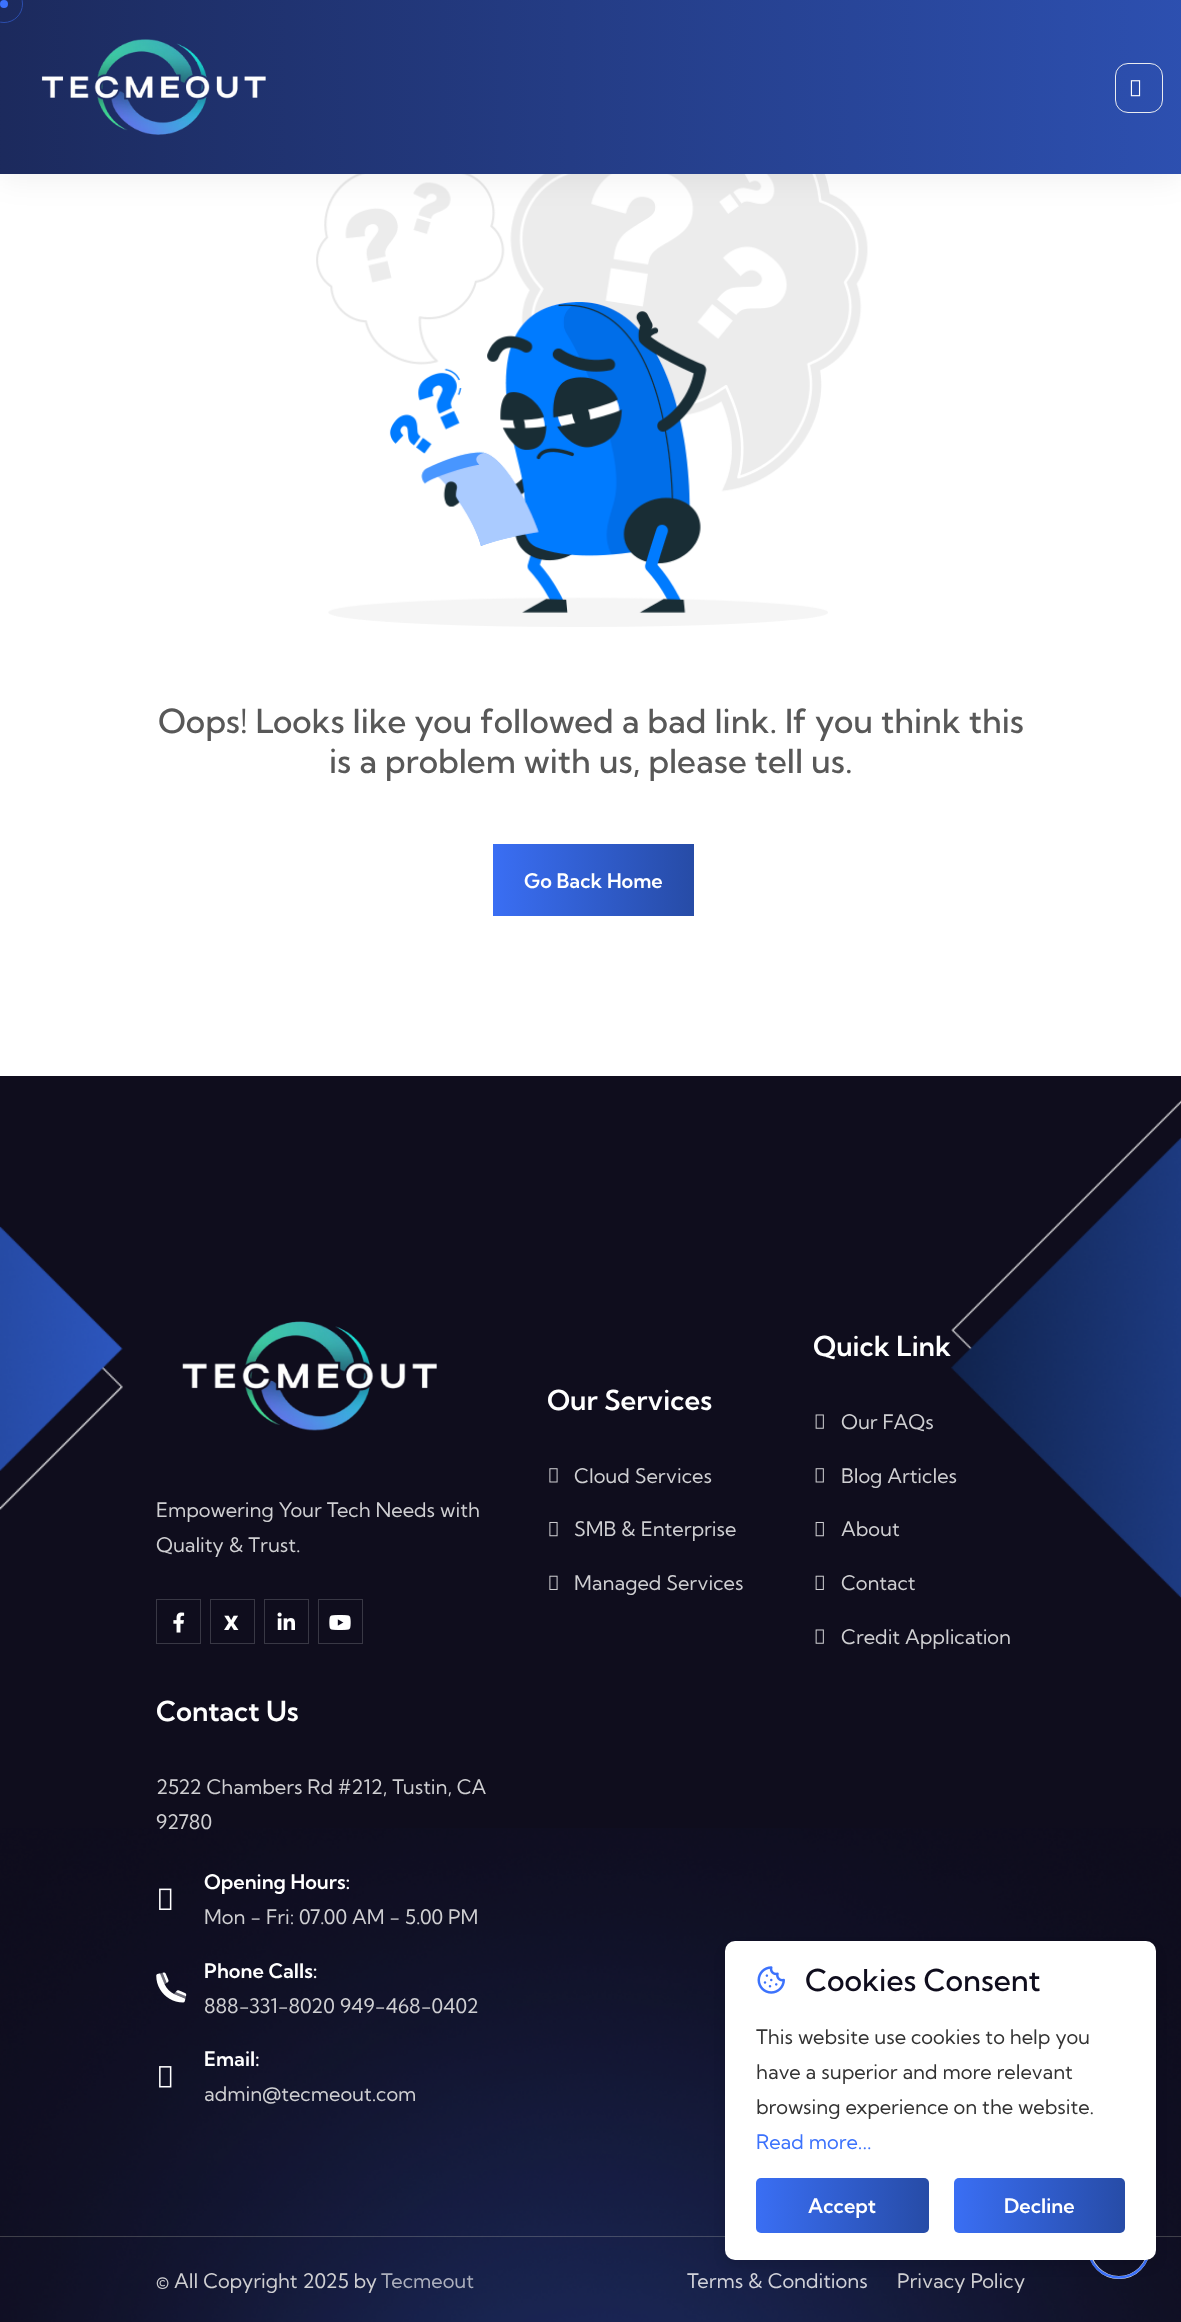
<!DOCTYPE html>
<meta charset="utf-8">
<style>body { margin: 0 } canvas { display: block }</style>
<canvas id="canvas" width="1181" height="2322"></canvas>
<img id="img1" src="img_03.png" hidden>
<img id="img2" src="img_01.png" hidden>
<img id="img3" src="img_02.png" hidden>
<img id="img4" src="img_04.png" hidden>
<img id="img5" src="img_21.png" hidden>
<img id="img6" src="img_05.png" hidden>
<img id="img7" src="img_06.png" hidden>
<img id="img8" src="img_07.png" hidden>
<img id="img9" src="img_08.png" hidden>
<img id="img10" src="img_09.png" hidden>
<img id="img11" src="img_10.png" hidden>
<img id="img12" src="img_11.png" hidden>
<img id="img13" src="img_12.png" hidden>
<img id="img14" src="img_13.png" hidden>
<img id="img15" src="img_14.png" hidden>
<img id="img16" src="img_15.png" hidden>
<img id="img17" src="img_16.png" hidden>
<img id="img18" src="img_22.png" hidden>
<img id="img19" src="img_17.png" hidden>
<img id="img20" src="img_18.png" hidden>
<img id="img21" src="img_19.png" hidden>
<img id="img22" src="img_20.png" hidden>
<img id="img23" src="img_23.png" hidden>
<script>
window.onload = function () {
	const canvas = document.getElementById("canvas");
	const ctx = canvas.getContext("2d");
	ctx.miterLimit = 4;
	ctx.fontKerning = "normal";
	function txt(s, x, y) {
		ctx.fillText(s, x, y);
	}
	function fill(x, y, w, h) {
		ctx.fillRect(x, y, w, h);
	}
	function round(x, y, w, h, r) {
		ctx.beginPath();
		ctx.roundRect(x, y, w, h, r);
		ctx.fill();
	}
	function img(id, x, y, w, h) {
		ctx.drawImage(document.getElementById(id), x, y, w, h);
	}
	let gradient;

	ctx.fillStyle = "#FFFFFF";
	fill(0, 0, 1181, 2322);
	img("img1", 316, 174, 552, 453);
	ctx.fillStyle = "rgba(0, 0, 0, 0.06)";
	ctx.filter = "blur(15.5px)";
	ctx.beginPath();
	ctx.rect(0, 5, 1181, 174);
	ctx.fill();
	ctx.filter = "none";
	gradient = ctx.createLinearGradient(-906, 87, 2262, 87);
	gradient.addColorStop(0, "#0F0D1D");
	gradient.addColorStop(1, "#3C72FC");
	ctx.fillStyle = gradient;
	fill(0, 0, 1181, 174);
	ctx.beginPath();
	ctx.arc(4, 4, 18.5, 0, Math.PI * 2);
	ctx.strokeStyle = "#2C4EAD";
	ctx.stroke();
	img("img2", 41, 39, 225, 96);
	ctx.beginPath();
	ctx.roundRect(1115.5, 63.5, 47, 49, 12.5);
	ctx.strokeStyle = "#EAECF0";
	ctx.stroke();
	img("img3", 1130, 80, 11, 17);
	ctx.fillStyle = "#3C72FC";
	ctx.beginPath();
	ctx.arc(4, 4, 4, 0, Math.PI * 2);
	ctx.fill();
	gradient = ctx.createLinearGradient(471, 880, 1097, 880);
	gradient.addColorStop(0, "#3C72FC");
	gradient.addColorStop(1, "#00060C");
	ctx.fillStyle = gradient;
	fill(493, 844, 201, 72);
	ctx.fillStyle = "#0F0D1D";
	fill(0, 1076, 1181, 1246);
	img("img4", 951, 1100, 230, 250);
	img("img5", 0, 1366, 123, 144);
	img("img6", 0, 1226, 123, 245);
	img("img7", 182, 1321, 255, 110);
	ctx.strokeStyle = "#393845";
	ctx.strokeRect(156.5, 1599.5, 44, 44);
	img("img8", 173, 1612, 12, 21);
	ctx.strokeRect(210.5, 1599.5, 44, 44);
	ctx.strokeRect(264.5, 1599.5, 44, 44);
	img("img9", 277, 1612, 18, 18);
	ctx.strokeRect(318.5, 1599.5, 44, 44);
	img("img10", 329, 1615, 22, 15);
	img("img11", 549, 1468, 9, 15);
	img("img12", 549, 1521, 9, 16);
	img("img13", 549, 1575, 9, 15);
	img("img14", 815, 1414, 9, 15);
	img("img15", 815, 1468, 9, 15);
	img("img16", 815, 1521, 9, 16);
	img("img17", 815, 1575, 9, 15);
	img("img14", 815, 1629, 9, 15);
	img("img18", 0, 1828, 1181, 494);
	img("img19", 159, 1888, 13, 22);
	img("img20", 156, 1972, 31, 31);
	ctx.fillStyle = "rgba(255, 255, 255, 0.4)";
	ctx.beginPath();
	ctx.moveTo(185.5, 1998.5);
	ctx.lineTo(186, 1996);
	ctx.lineTo(175.5, 1992);
	ctx.lineTo(174, 1994);
	ctx.closePath();
	ctx.moveTo(164.5, 1984.5);
	ctx.lineTo(166.5, 1983);
	ctx.lineTo(162.5, 1973);
	ctx.lineTo(160, 1973.5);
	ctx.closePath();
	ctx.fill();
	img("img21", 159, 2066, 13, 22);
	img("img22", 951, 1137, 230, 462);
	ctx.fillStyle = "rgba(255, 255, 225, 0.2)";
	fill(0, 2236, 1181, 1);
	ctx.beginPath();
	ctx.roundRect(1089.5, 2217.5, 59, 60, 29.5);
	ctx.strokeStyle = "#E3E3E3";
	ctx.lineWidth = 3;
	ctx.stroke();
	ctx.beginPath();
	ctx.moveTo(1119, 2217.5);
	ctx.bezierCurveTo(1135.5, 2217.5, 1149, 2231, 1149, 2247.5);
	ctx.bezierCurveTo(1149, 2264, 1135.5, 2277.5, 1119, 2277.5);
	ctx.bezierCurveTo(1102, 2277.5, 1088.5, 2264, 1088.5, 2247.5);
	ctx.bezierCurveTo(1088.5, 2231, 1102, 2217.5, 1119, 2217.5);
	ctx.strokeStyle = "#3C72FC";
	ctx.lineWidth = 2.5;
	ctx.stroke();
	ctx.fillStyle = "rgba(0, 0, 0, 0.1)";
	ctx.filter = "blur(6px)";
	ctx.beginPath();
	ctx.roundRect(725, 1948, 431, 318, 10);
	ctx.fill();
	ctx.filter = "none";
	ctx.fillStyle = "#FFFFFF";
	round(725, 1941, 431, 319, 10);
	img("img23", 757, 1966, 28, 28);
	gradient = ctx.createLinearGradient(738, 2205, 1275, 2205);
	gradient.addColorStop(0, "#3C72FC");
	gradient.addColorStop(1, "#00060C");
	ctx.fillStyle = gradient;
	round(756, 2178, 173, 55, 5);
	gradient = ctx.createLinearGradient(936, 2205, 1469, 2205);
	gradient.addColorStop(0, "#3C72FC");
	gradient.addColorStop(1, "#00060C");
	ctx.fillStyle = gradient;
	round(954, 2178, 171, 55, 5);
	ctx.font = "500 33.1px Kumbh Sans";
	ctx.fillStyle = "#585858";
	txt("Oops! Looks like you followed a bad link. If you think this", 158, 733);
	txt("is a problem with us, please tell us.", 329, 773);
	ctx.font = "600 20px Kumbh Sans";
	ctx.fillStyle = "#FFFFFF";
	txt("Go Back Home", 524, 888);
	ctx.font = "20px Kumbh Sans";
	ctx.fillStyle = "#CFCFD2";
	txt("Empowering Your Tech Needs with", 156, 1517);
	txt("Quality & Trust.", 156, 1552);
	ctx.font = "900 20px Noto Sans";
	ctx.fillStyle = "#FFFFFF";
	txt("X", 224, 1630);
	ctx.font = "600 27.5px Kumbh Sans";
	txt("Our Services", 547, 1410);
	ctx.font = "20px Kumbh Sans";
	ctx.fillStyle = "#CFCFD2";
	txt("Cloud Services", 574, 1483);
	txt("SMB & Enterprise", 574, 1536);
	txt("Managed Services", 574, 1590);
	ctx.font = "600 27.5px Kumbh Sans";
	ctx.fillStyle = "#FFFFFF";
	txt("Quick Link", 813, 1356);
	ctx.font = "20px Kumbh Sans";
	ctx.fillStyle = "#CFCFD2";
	txt("Our FAQs", 841, 1429);
	txt("Blog Articles", 841, 1483);
	txt("About", 841, 1536);
	txt("Contact", 841, 1590);
	txt("Credit Application", 841, 1644);
	ctx.font = "600 27.5px Kumbh Sans";
	ctx.fillStyle = "#FFFFFF";
	txt("Contact Us", 156, 1721);
	ctx.font = "20px Kumbh Sans";
	ctx.fillStyle = "#CFCFD2";
	txt("2522 Chambers Rd #212, Tustin, CA", 156, 1794);
	txt("92780", 156, 1829);
	ctx.font = "600 20px Kumbh Sans";
	ctx.fillStyle = "#FFFFFF";
	txt("Opening Hours:", 204, 1889);
	ctx.font = "20px Kumbh Sans";
	ctx.fillStyle = "#CFCFD2";
	txt("Mon - Fri: 07.00 AM - 5.00 PM", 204, 1924);
	ctx.font = "600 20px Kumbh Sans";
	ctx.fillStyle = "#FFFFFF";
	txt("Phone Calls:", 204, 1978);
	ctx.font = "20px Kumbh Sans";
	ctx.fillStyle = "#CFCFD2";
	txt("888-331-8020", 204, 2013);
	txt("949-468-0402", 340, 2013);
	ctx.font = "600 20px Kumbh Sans";
	ctx.fillStyle = "#FFFFFF";
	txt("Email:", 204, 2066);
	ctx.font = "20px Kumbh Sans";
	ctx.fillStyle = "#CFCFD2";
	txt("admin@tecmeout.com", 204, 2101);
	txt("© All Copyright 2025 by", 156, 2288);
	ctx.fillStyle = "#ACAFBD";
	txt("Tecmeout", 381, 2288);
	ctx.fillStyle = "#D1D2DA";
	txt("Terms & Conditions", 687, 2288);
	ctx.fillStyle = "#CFCFD2";
	txt("Privacy Policy", 897, 2288);
	ctx.font = "500 30px Kumbh Sans";
	ctx.fillStyle = "#0F0D1D";
	txt("Cookies Consent", 805, 1991);
	ctx.font = "20px Kumbh Sans";
	ctx.fillStyle = "#333333";
	txt("This website use cookies to help you", 756, 2044);
	txt("have a superior and more relevant", 756, 2079);
	txt("browsing experience on the website.", 756, 2114);
	ctx.fillStyle = "#3C72FC";
	txt("Read more...", 756, 2149);
	ctx.font = "600 20px Kumbh Sans";
	ctx.fillStyle = "#FFFFFF";
	txt("Accept", 808, 2213);
	txt("Decline", 1004, 2213);
};
</script>
